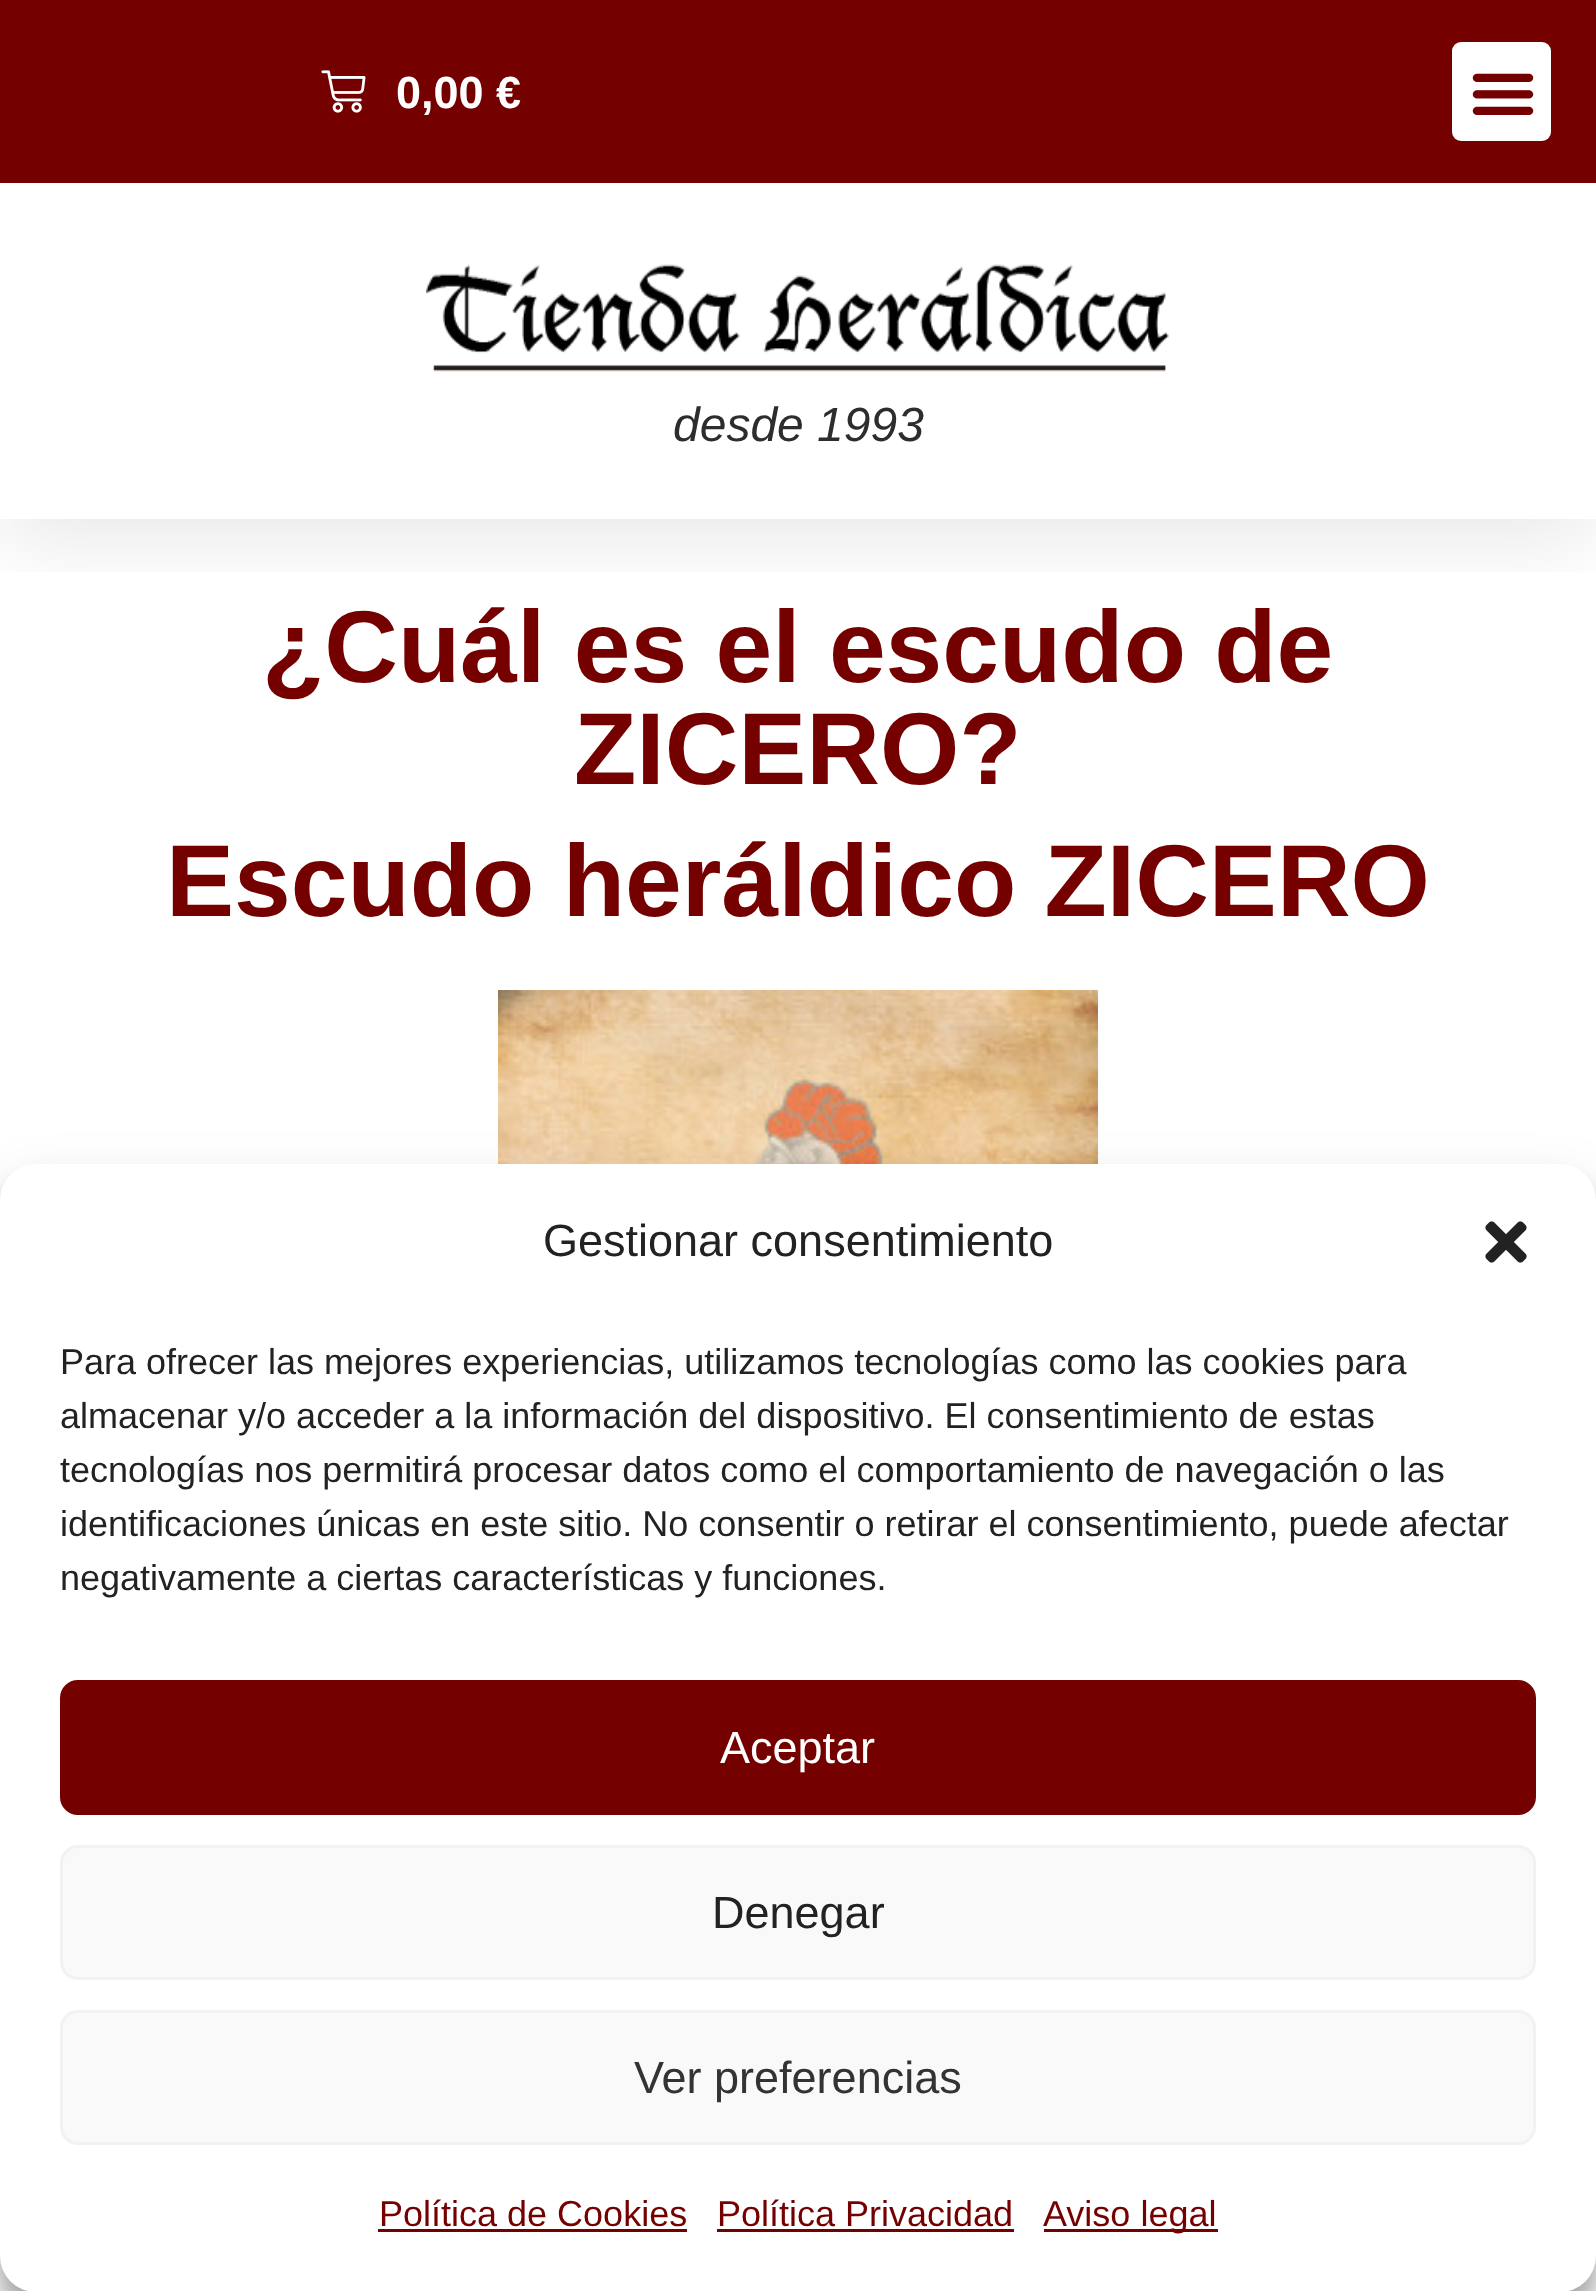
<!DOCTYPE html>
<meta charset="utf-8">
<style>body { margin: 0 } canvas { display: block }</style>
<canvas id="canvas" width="1596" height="2291"></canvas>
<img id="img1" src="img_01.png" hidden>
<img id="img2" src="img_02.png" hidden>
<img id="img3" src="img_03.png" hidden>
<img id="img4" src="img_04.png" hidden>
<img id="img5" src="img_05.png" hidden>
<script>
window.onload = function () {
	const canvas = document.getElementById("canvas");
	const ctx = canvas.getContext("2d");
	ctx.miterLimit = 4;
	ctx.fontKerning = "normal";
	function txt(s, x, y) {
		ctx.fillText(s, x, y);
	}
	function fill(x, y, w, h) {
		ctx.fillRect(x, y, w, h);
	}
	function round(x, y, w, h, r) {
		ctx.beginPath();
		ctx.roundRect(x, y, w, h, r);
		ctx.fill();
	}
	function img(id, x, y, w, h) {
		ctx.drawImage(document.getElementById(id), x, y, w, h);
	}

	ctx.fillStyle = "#FFFFFF";
	fill(0, 0, 1596, 2291);
	ctx.save();
	ctx.beginPath();
	ctx.rect(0, 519, 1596, 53);
	ctx.clip();
	ctx.fillStyle = "rgba(0, 0, 0, 0.1)";
	ctx.filter = "blur(45px)";
	ctx.beginPath();
	ctx.rect(0, 15, 1596, 519);
	ctx.fill();
	ctx.filter = "none";
	ctx.restore();
	ctx.fillStyle = "#750000";
	fill(0, 0, 1596, 183);
	img("img1", 321, 70, 45, 43);
	ctx.fillStyle = "#FFFFFF";
	round(1452, 42, 99, 99, 9);
	img("img2", 1472, 73, 62, 42);
	img("img3", 425, 264, 744, 108);
	img("img4", 498, 990, 600, 174);
	ctx.fillStyle = "rgba(0, 0, 0, 0.23)";
	ctx.filter = "blur(9px)";
	ctx.beginPath();
	ctx.roundRect(0, 1182, 1596, 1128, 36);
	ctx.fill();
	ctx.filter = "none";
	ctx.fillStyle = "rgba(0, 0, 0, 0.19)";
	ctx.filter = "blur(30px)";
	ctx.beginPath();
	ctx.roundRect(0, 1194, 1596, 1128, 36);
	ctx.fill();
	ctx.filter = "none";
	ctx.fillStyle = "#FFFFFF";
	round(0, 1164, 1596, 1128, 36);
	img("img5", 1485, 1221, 42, 42);
	ctx.fillStyle = "#740000";
	ctx.beginPath();
	ctx.roundRect(61.5, 1681.5, 1473, 132, 16.5);
	ctx.fill();
	ctx.strokeStyle = "#740000";
	ctx.lineWidth = 3;
	ctx.stroke();
	ctx.fillStyle = "#F9F9F9";
	ctx.beginPath();
	ctx.roundRect(61.5, 1846.5, 1473, 132, 16.5);
	ctx.fill();
	ctx.strokeStyle = "#F2F2F2";
	ctx.stroke();
	ctx.beginPath();
	ctx.roundRect(61.5, 2011.5, 1473, 132, 16.5);
	ctx.fill();
	ctx.stroke();
	ctx.fillStyle = "#740000";
	fill(378, 2229, 309, 3);
	fill(717, 2229, 297, 3);
	fill(1044, 2229, 174, 3);
	ctx.font = "bold 45px Liberation Sans";
	ctx.fillStyle = "#FFFFFF";
	txt("0,00 €", 396, 108);
	ctx.font = "italic 48px Liberation Sans";
	ctx.fillStyle = "#2D2D2D";
	txt("desde 1993", 673, 441);
	ctx.font = "bold 102px Liberation Sans";
	ctx.fillStyle = "#750000";
	txt("¿Cuál es el escudo de", 262, 682);
	txt("ZICERO?", 574, 784);
	txt("Escudo heráldico ZICERO", 166, 916);
	ctx.font = "45px Liberation Sans";
	ctx.fillStyle = "#222222";
	txt("Gestionar consentimiento", 543, 1256);
	ctx.font = "36px Liberation Sans";
	txt("Para ofrecer las mejores experiencias, utilizamos tecnologías como las cookies para", 60, 1374);
	txt("almacenar y/o acceder a la información del dispositivo. El consentimiento de estas", 60, 1428);
	txt("tecnologías nos permitirá procesar datos como el comportamiento de navegación o las", 60, 1482);
	txt("identificaciones únicas en este sitio. No consentir o retirar el consentimiento, puede afectar", 60, 1536);
	txt("negativamente a ciertas características y funciones.", 60, 1590);
	ctx.font = "45px Liberation Sans";
	ctx.fillStyle = "#FFFFFF";
	txt("Aceptar", 720, 1763);
	ctx.fillStyle = "#222222";
	txt("Denegar", 712, 1928);
	ctx.fillStyle = "#333333";
	txt("Ver preferencias", 634, 2093);
	ctx.font = "36px Liberation Sans";
	ctx.fillStyle = "#750000";
	txt("Política de Cookies", 379, 2226);
	txt("Política Privacidad", 717, 2226);
	txt("Aviso legal", 1043, 2226);
};
</script>
